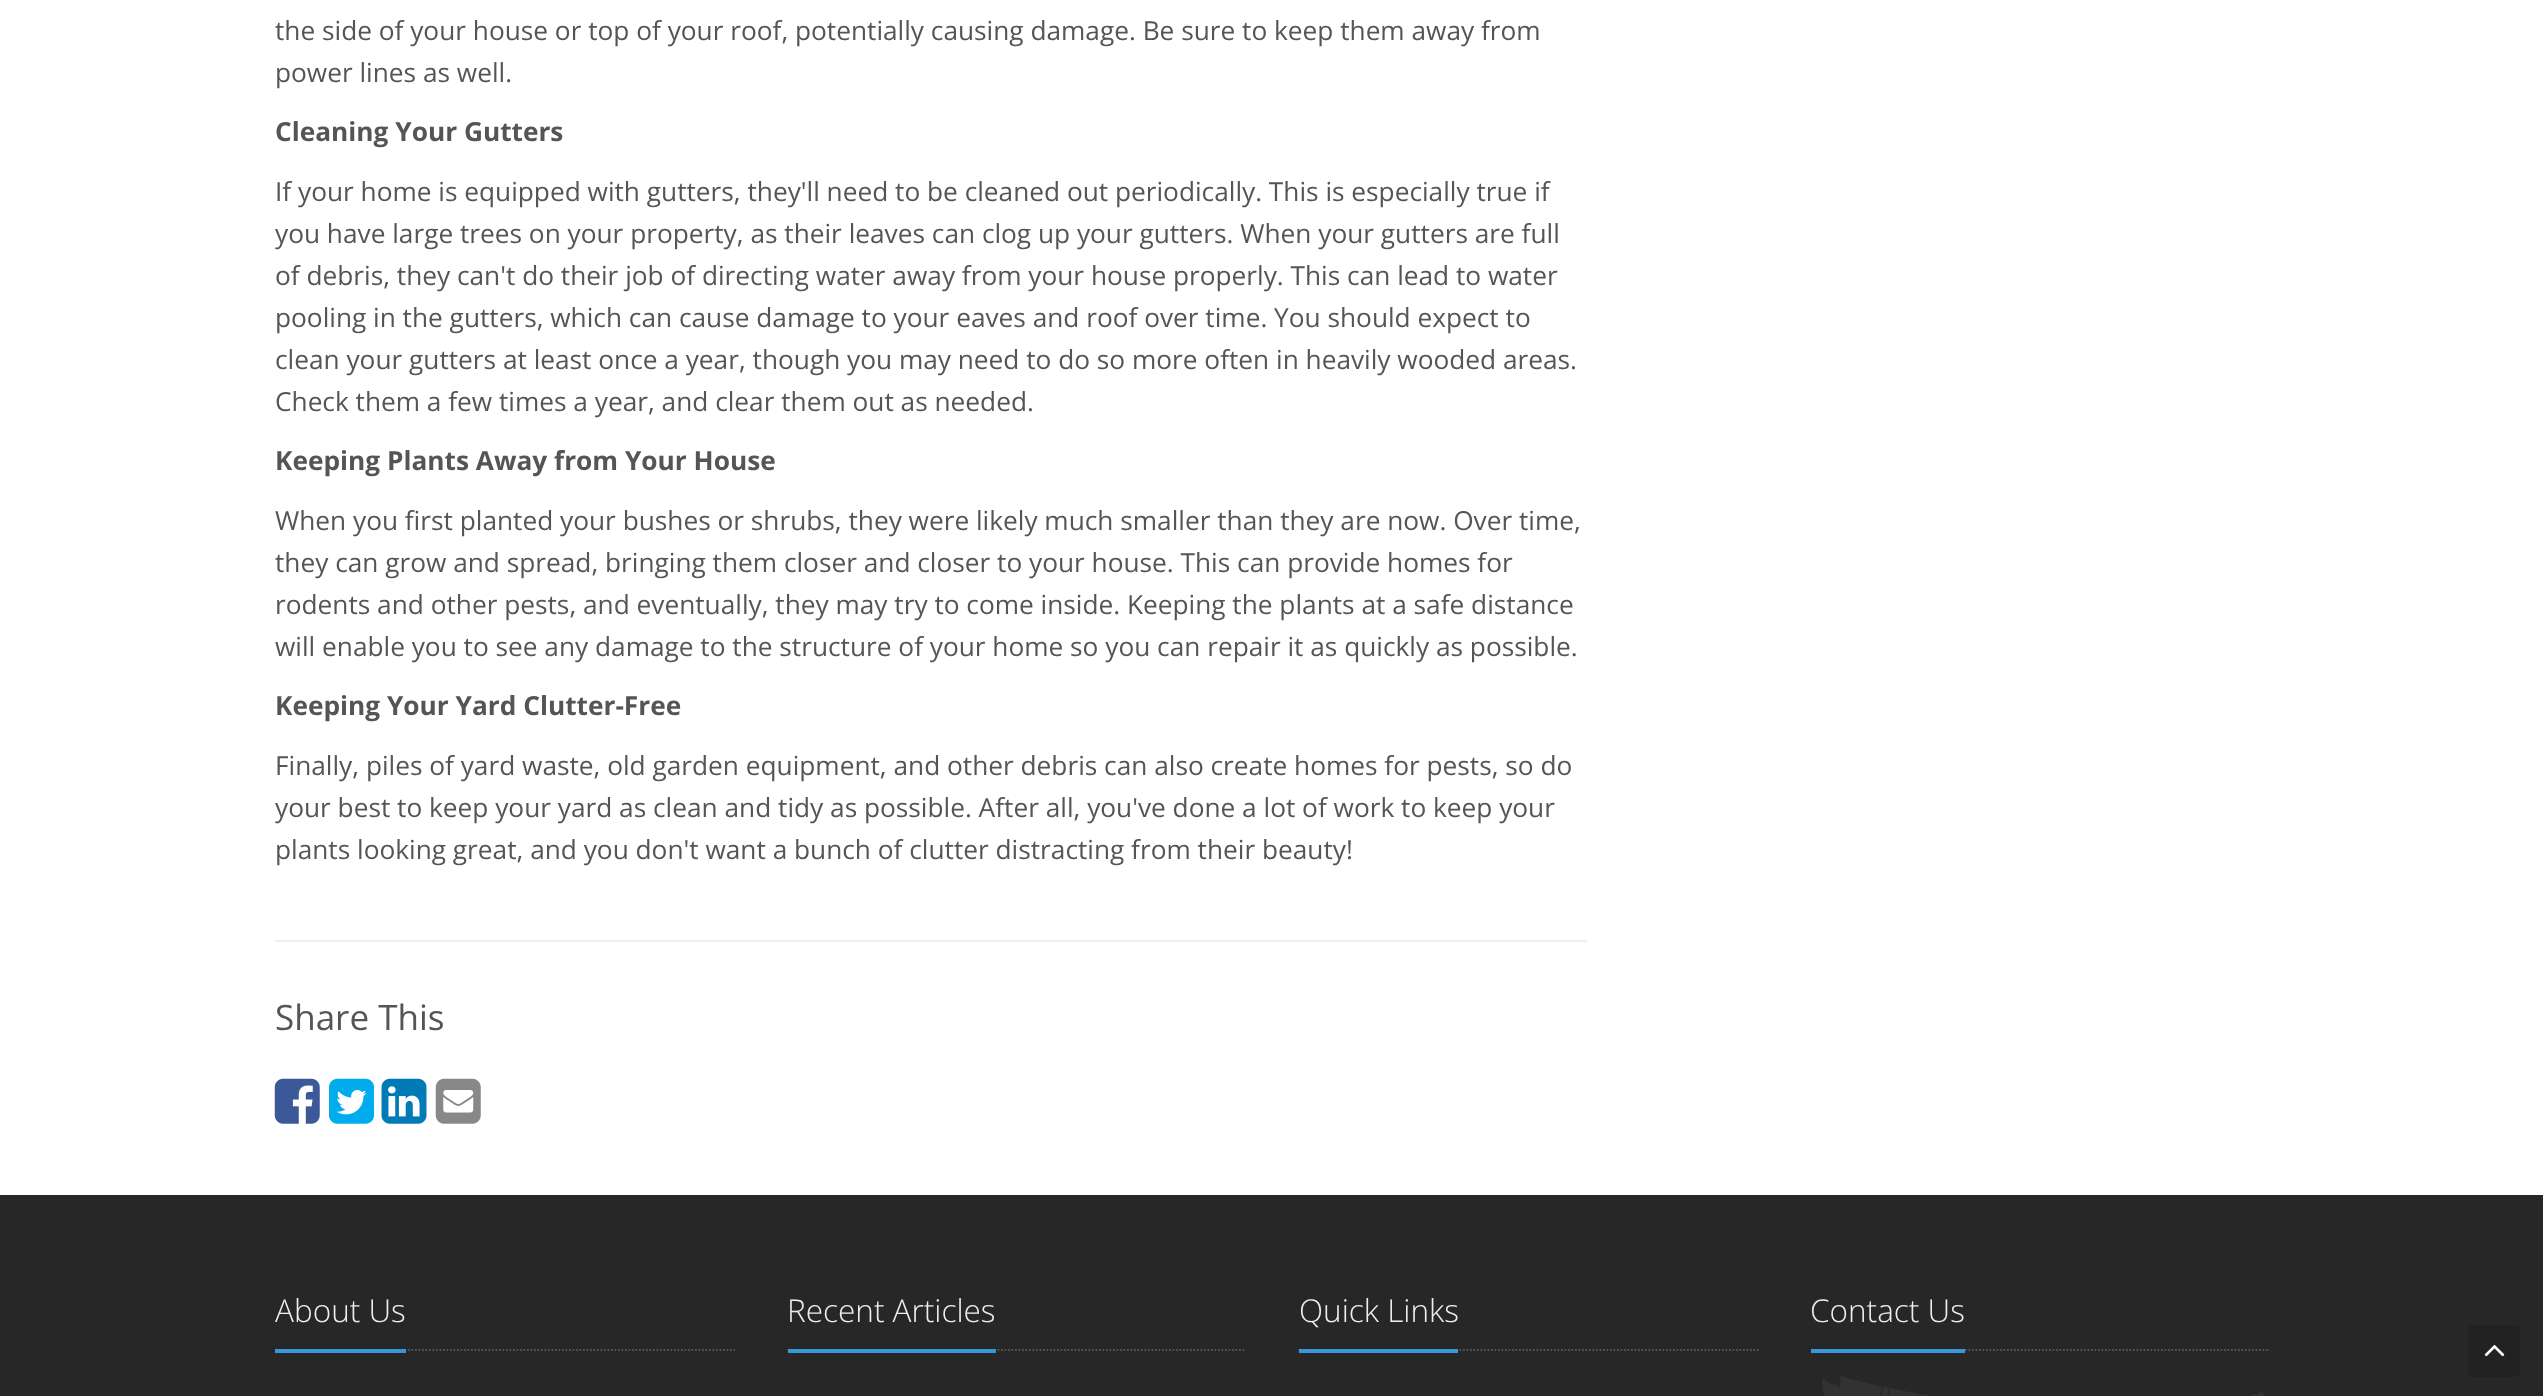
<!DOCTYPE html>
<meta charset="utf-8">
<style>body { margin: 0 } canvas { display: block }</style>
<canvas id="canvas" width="2543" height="1396"></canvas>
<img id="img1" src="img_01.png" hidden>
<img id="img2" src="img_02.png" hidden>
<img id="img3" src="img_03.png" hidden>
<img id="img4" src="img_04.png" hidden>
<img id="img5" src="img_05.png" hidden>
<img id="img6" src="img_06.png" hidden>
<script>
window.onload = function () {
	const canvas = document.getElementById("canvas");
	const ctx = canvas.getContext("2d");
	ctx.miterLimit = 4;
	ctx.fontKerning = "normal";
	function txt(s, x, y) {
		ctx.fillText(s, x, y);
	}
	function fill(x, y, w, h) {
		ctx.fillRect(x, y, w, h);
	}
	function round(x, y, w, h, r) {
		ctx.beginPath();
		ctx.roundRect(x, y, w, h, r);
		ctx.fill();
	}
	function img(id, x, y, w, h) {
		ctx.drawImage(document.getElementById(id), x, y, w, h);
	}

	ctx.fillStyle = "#FFFFFF";
	fill(0, 0, 2543, 1396);
	ctx.fillStyle = "#EEEEEE";
	fill(275, 940, 1312, 2);
	img("img1", 274, 1078, 46, 46);
	img("img2", 329, 1078, 45, 46);
	img("img3", 381, 1078, 46, 46);
	img("img4", 435, 1078, 46, 46);
	ctx.fillStyle = "#272727";
	fill(0, 1195, 2543, 201);
	ctx.beginPath();
	ctx.moveTo(275, 1350);
	ctx.lineTo(735, 1350);
	ctx.strokeStyle = "#545454";
	ctx.lineWidth = 1.8;
	ctx.setLineDash([1.75, 1.75]);
	ctx.stroke();
	ctx.fillStyle = "#3498DB";
	fill(275, 1349, 131, 4);
	ctx.beginPath();
	ctx.moveTo(787.5, 1350);
	ctx.lineTo(1246, 1350);
	ctx.stroke();
	fill(788, 1349, 208, 4);
	ctx.beginPath();
	ctx.moveTo(1298.5, 1350);
	ctx.lineTo(1759, 1350);
	ctx.stroke();
	fill(1299, 1349, 159, 4);
	img("img5", 1822, 1376, 443, 20);
	ctx.beginPath();
	ctx.moveTo(1811, 1350);
	ctx.lineTo(2270, 1350);
	ctx.stroke();
	fill(1811, 1349, 154, 4);
	ctx.fillStyle = "#222222";
	round(2468, 1325, 52, 52, 5);
	img("img6", 2484, 1344, 21, 13);
	ctx.font = "26.25px Open Sans";
	ctx.fillStyle = "#555555";
	txt("the side of your house or top of your roof, potentially causing damage. Be sure to keep them away from", 275, 40);
	txt("power lines as well.", 275, 82);
	ctx.font = "bold 26.25px Open Sans";
	txt("Cleaning Your Gutters", 275, 141);
	ctx.font = "26.25px Open Sans";
	txt("If your home is equipped with gutters, they'll need to be cleaned out periodically. This is especially true if", 275, 201);
	txt("you have large trees on your property, as their leaves can clog up your gutters. When your gutters are full", 275, 243);
	txt("of debris, they can't do their job of directing water away from your house properly. This can lead to water", 275, 285);
	txt("pooling in the gutters, which can cause damage to your eaves and roof over time. You should expect to", 275, 327);
	txt("clean your gutters at least once a year, though you may need to do so more often in heavily wooded areas.", 275, 369);
	txt("Check them a few times a year, and clear them out as needed.", 275, 411);
	ctx.font = "bold 26.25px Open Sans";
	txt("Keeping Plants Away from Your House", 275, 470);
	ctx.font = "26.25px Open Sans";
	txt("When you first planted your bushes or shrubs, they were likely much smaller than they are now. Over time,", 275, 530);
	txt("they can grow and spread, bringing them closer and closer to your house. This can provide homes for", 275, 572);
	txt("rodents and other pests, and eventually, they may try to come inside. Keeping the plants at a safe distance", 275, 614);
	txt("will enable you to see any damage to the structure of your home so you can repair it as quickly as possible.", 275, 656);
	ctx.font = "bold 26.25px Open Sans";
	txt("Keeping Your Yard Clutter-Free", 275, 715);
	ctx.font = "26.25px Open Sans";
	txt("Finally, piles of yard waste, old garden equipment, and other debris can also create homes for pests, so do", 275, 775);
	txt("your best to keep your yard as clean and tidy as possible. After all, you've done a lot of work to keep your", 275, 817);
	txt("plants looking great, and you don't want a bunch of clutter distracting from their beauty!", 275, 859);
	ctx.font = "35px Open Sans";
	txt("Share This", 275, 1030);
	ctx.font = "300 31.5px Open Sans";
	ctx.fillStyle = "#EEEEEE";
	txt("About Us", 275, 1322);
	txt("Recent Articles", 787, 1322);
	txt("Quick Links", 1299, 1322);
	txt("Contact Us", 1810, 1322);
};
</script>
